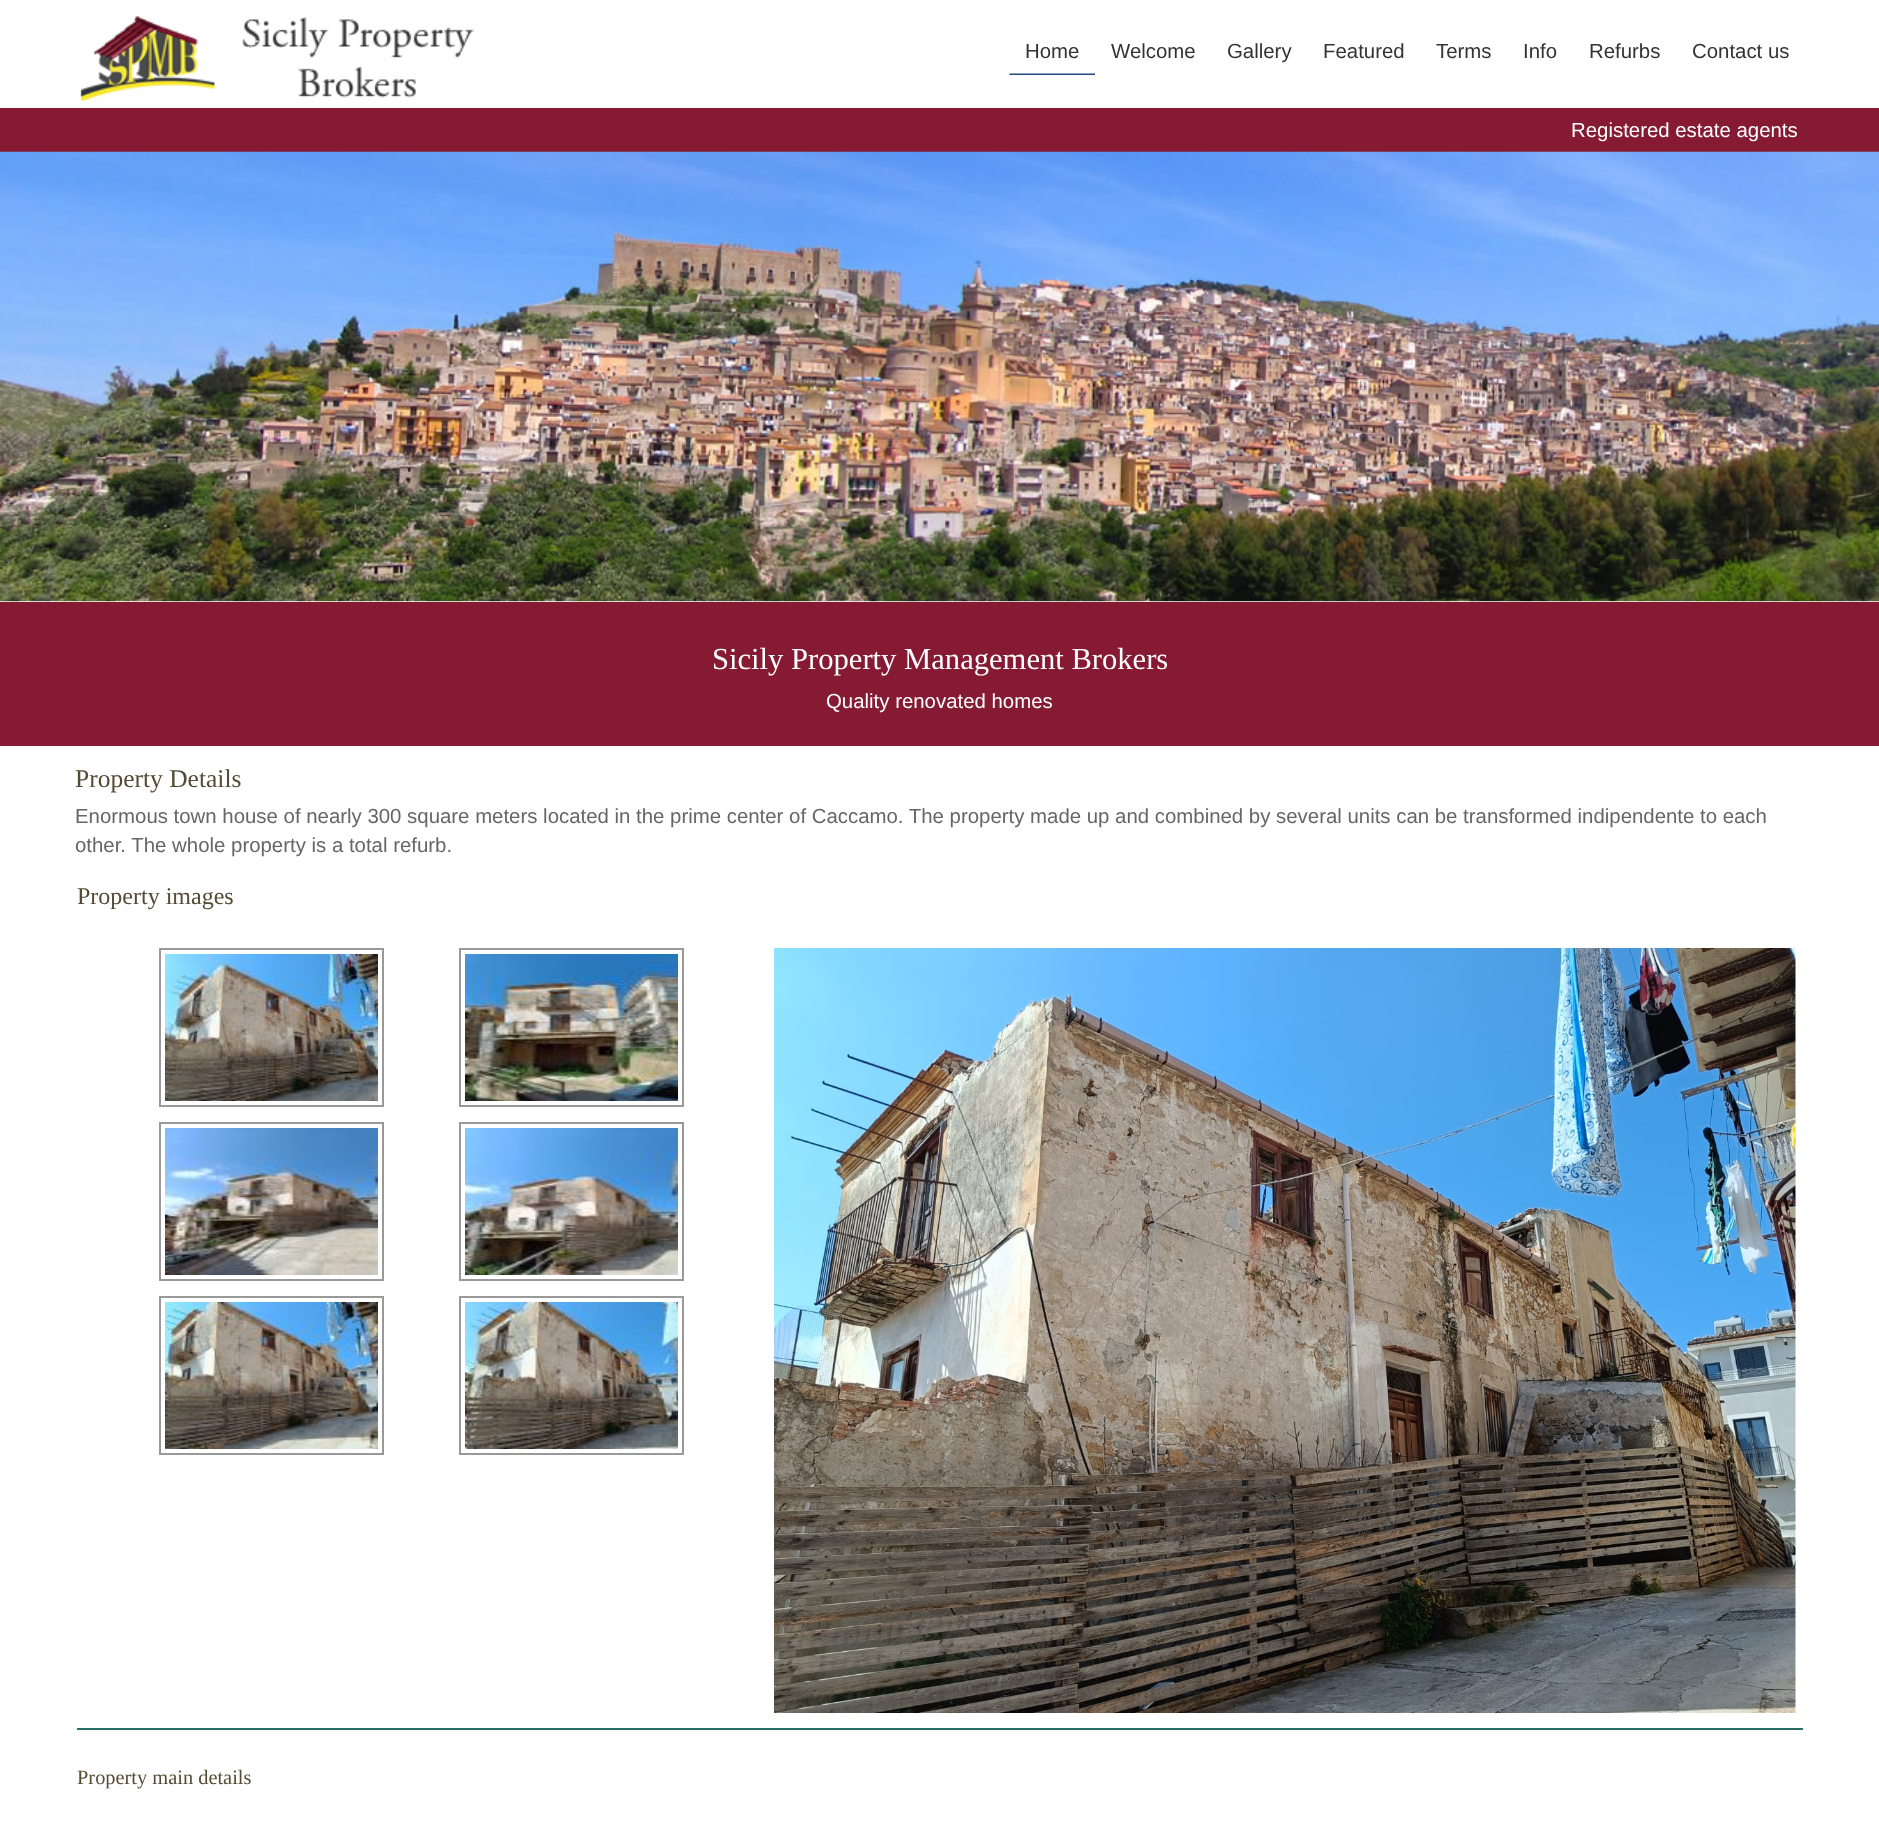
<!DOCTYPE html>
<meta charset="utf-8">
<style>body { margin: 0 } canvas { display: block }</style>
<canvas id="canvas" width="1879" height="1826"></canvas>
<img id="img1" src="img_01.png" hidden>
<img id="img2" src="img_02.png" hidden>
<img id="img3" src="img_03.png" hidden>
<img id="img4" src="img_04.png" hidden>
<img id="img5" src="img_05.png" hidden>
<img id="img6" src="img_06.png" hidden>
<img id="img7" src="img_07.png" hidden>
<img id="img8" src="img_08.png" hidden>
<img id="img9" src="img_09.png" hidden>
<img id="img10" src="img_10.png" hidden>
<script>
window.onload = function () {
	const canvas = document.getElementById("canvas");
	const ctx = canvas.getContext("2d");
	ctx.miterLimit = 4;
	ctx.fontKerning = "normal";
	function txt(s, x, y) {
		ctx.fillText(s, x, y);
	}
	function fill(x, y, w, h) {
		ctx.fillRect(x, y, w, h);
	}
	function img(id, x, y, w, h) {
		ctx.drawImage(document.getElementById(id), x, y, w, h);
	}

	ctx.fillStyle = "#FFFFFF";
	fill(0, 0, 1879, 1826);
	img("img1", 80, 16, 395, 85);
	img("img2", 1009, 73, 86, 2);
	ctx.fillStyle = "#851A32";
	fill(0, 108, 1879, 44);
	img("img3", 0, 151, 1879, 451);
	fill(0, 602, 1879, 144);
	ctx.strokeStyle = "#999999";
	ctx.lineWidth = 2;
	ctx.strokeRect(160, 949, 223, 157);
	img("img4", 165, 954, 213, 147);
	ctx.strokeRect(460, 949, 223, 157);
	img("img5", 465, 954, 213, 147);
	ctx.strokeRect(160, 1123, 223, 157);
	img("img6", 165, 1128, 213, 147);
	ctx.strokeRect(460, 1123, 223, 157);
	img("img7", 465, 1128, 213, 147);
	ctx.strokeRect(160, 1297, 223, 157);
	img("img8", 165, 1302, 213, 147);
	ctx.strokeRect(460, 1297, 223, 157);
	img("img9", 465, 1302, 213, 147);
	img("img10", 774, 948, 1022, 765);
	ctx.fillStyle = "#286C64";
	fill(77, 1728, 1726, 2);
	ctx.font = "20.4px Liberation Sans";
	ctx.fillStyle = "#333333";
	txt("Home", 1025, 58);
	txt("Welcome", 1111, 58);
	txt("Gallery", 1227, 58);
	txt("Featured", 1323, 58);
	txt("Terms", 1436, 58);
	txt("Info", 1523, 58);
	txt("Refurbs", 1589, 58);
	txt("Contact us", 1692, 58);
	ctx.fillStyle = "#FFFFFF";
	txt("Registered estate agents", 1571, 137);
	ctx.font = "30.6px Liberation Serif";
	txt("Sicily Property Management Brokers", 712, 669);
	ctx.font = "20.4px Liberation Sans";
	txt("Quality renovated homes", 826, 708);
	ctx.font = "25.5px Liberation Serif";
	ctx.fillStyle = "#544B34";
	txt("Property Details", 75, 787);
	ctx.font = "20.4px Liberation Sans";
	ctx.fillStyle = "#666666";
	txt("Enormous town house of nearly 300 square meters located in the prime center of Caccamo. The property made up and combined by several units can be transformed indipendente to each", 75, 823);
	txt("other. The whole property is a total refurb.", 75, 852);
	ctx.font = "24px Liberation Serif";
	ctx.fillStyle = "#544B34";
	txt("Property images", 77, 904);
	ctx.font = "20.4px Liberation Serif";
	txt("Property main details", 77, 1784);
};
</script>
